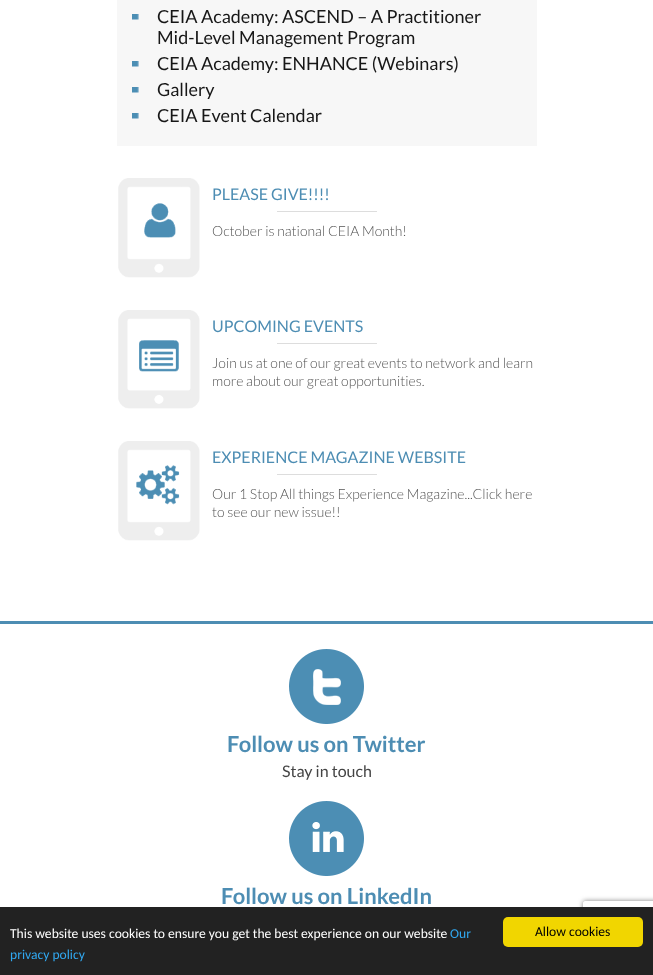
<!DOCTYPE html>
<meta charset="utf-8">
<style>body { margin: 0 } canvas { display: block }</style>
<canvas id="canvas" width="653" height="975"></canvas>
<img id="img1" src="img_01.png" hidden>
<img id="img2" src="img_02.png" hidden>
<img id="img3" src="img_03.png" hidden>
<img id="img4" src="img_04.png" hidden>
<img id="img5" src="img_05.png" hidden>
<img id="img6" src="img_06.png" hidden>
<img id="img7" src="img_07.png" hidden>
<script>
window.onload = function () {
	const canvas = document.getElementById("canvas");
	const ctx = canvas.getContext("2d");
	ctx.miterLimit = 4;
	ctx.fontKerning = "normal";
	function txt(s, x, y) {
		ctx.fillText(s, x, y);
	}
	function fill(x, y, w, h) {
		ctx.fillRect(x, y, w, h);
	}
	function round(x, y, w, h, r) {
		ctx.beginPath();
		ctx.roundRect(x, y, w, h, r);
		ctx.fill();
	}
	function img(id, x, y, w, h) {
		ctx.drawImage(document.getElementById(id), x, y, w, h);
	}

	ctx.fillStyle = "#FFFFFF";
	fill(0, 0, 653, 975);
	ctx.fillStyle = "#F7F7F7";
	fill(117, 0, 420, 146);
	img("img1", 132, 14, 7, 6);
	img("img1", 132, 61, 7, 6);
	img("img1", 132, 87, 7, 6);
	img("img1", 132, 113, 7, 6);
	img("img2", 118, 178, 82, 100);
	img("img3", 277, 211, 100, 1);
	img("img4", 118, 310, 82, 99);
	img("img3", 277, 343, 100, 1);
	img("img5", 118, 441, 82, 100);
	img("img3", 277, 474, 100, 1);
	ctx.fillStyle = "#4D8DB3";
	fill(0, 621, 653, 3);
	img("img6", 289, 649, 75, 75);
	img("img7", 289, 801, 75, 75);
	ctx.save();
	ctx.beginPath();
	ctx.moveTo(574, 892);
	ctx.lineTo(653, 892);
	ctx.lineTo(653, 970);
	ctx.lineTo(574, 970);
	ctx.closePath();
	ctx.moveTo(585, 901);
	ctx.lineTo(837, 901);
	ctx.bezierCurveTo(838, 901, 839, 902, 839, 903);
	ctx.lineTo(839, 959);
	ctx.bezierCurveTo(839, 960, 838, 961, 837, 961);
	ctx.lineTo(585, 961);
	ctx.bezierCurveTo(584, 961, 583, 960, 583, 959);
	ctx.lineTo(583, 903);
	ctx.bezierCurveTo(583, 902, 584, 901, 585, 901);
	ctx.closePath();
	ctx.clip("evenodd");
	ctx.fillStyle = "#808080";
	ctx.filter = "blur(2.5px)";
	ctx.beginPath();
	ctx.roundRect(583, 901, 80, 60, 2);
	ctx.fill();
	ctx.filter = "none";
	ctx.restore();
	ctx.fillStyle = "#222222";
	fill(0, 907, 653, 68);
	ctx.fillStyle = "#F1D600";
	round(503, 917, 140, 30, 5);
	ctx.font = "18px Lato";
	ctx.fillStyle = "#171717";
	txt("CEIA Academy: ASCEND – A Practitioner", 157, 23);
	txt("Mid-Level Management Program", 157, 44);
	txt("CEIA Academy: ENHANCE (Webinars)", 157, 70);
	txt("Gallery", 157, 96);
	txt("CEIA Event Calendar", 157, 122);
	ctx.font = "16px Lato";
	ctx.fillStyle = "#4D8DB3";
	txt("PLEASE GIVE!!!!", 212, 200);
	ctx.font = "300 14px Lato";
	ctx.fillStyle = "#555555";
	txt("October is national CEIA Month!", 212, 236);
	ctx.font = "16px Lato";
	ctx.fillStyle = "#4D8DB3";
	txt("UPCOMING EVENTS", 212, 332);
	ctx.font = "300 14px Lato";
	ctx.fillStyle = "#555555";
	txt("Join us at one of our great events to network and learn", 212, 368);
	txt("more about our great opportunities.", 212, 386);
	ctx.font = "16px Lato";
	ctx.fillStyle = "#4D8DB3";
	txt("EXPERIENCE MAGAZINE WEBSITE", 212, 463);
	ctx.font = "300 14px Lato";
	ctx.fillStyle = "#555555";
	txt("Our 1 Stop All things Experience Magazine...Click here", 212, 499);
	txt("to see our new issue!!", 212, 517);
	ctx.font = "bold 22px Lato";
	ctx.fillStyle = "#4D8DB3";
	txt("Follow us on Twitter", 227, 752);
	ctx.font = "16px Lato";
	ctx.fillStyle = "#444444";
	txt("Stay in touch", 282, 777);
	ctx.font = "bold 22px Lato";
	ctx.fillStyle = "#4D8DB3";
	txt("Follow us on LinkedIn", 221, 904);
	ctx.font = "13.6px Carlito";
	ctx.fillStyle = "#FFFFFF";
	txt("This website uses cookies to ensure you get the best experience on our website", 10, 938);
	ctx.fillStyle = "#31A8F0";
	txt("Our", 450, 938);
	txt("privacy policy", 10, 959);
	ctx.fillStyle = "#000000";
	txt("Allow cookies", 535, 936);
};
</script>
